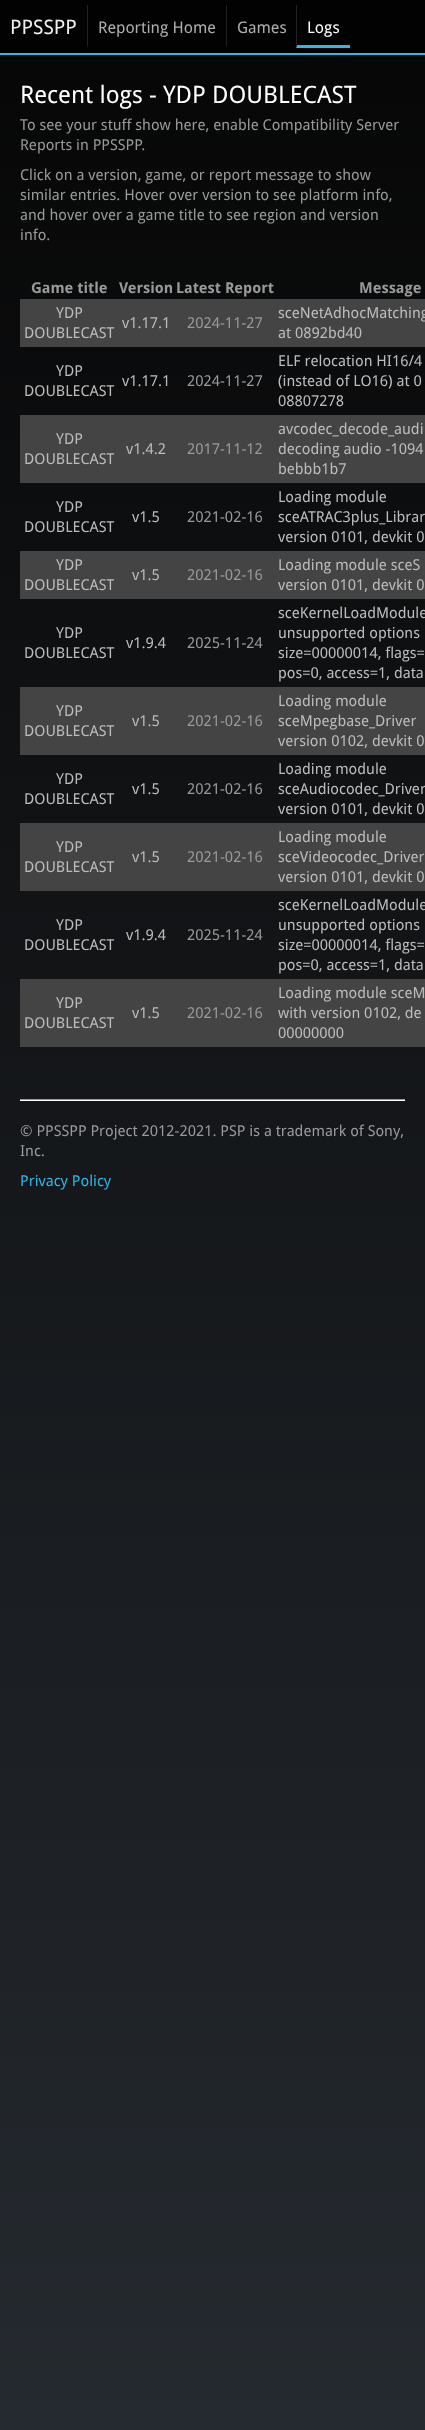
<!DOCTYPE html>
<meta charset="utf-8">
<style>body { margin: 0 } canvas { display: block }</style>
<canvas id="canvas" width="425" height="2430"></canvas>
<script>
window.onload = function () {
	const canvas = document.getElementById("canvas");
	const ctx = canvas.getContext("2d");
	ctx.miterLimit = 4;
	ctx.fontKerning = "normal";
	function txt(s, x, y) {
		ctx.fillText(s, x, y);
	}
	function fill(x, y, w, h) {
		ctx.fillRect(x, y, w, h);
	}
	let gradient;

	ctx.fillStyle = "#FFFFFF";
	fill(0, 0, 425, 2430);
	gradient = ctx.createLinearGradient(212, 0, 213, 2430);
	gradient.addColorStop(0, "#060606");
	gradient.addColorStop(1, "#252A30");
	ctx.fillStyle = gradient;
	fill(0, 55, 425, 2375);
	ctx.fillStyle = "#020202";
	fill(0, 0, 425, 53);
	ctx.fillStyle = "#33B5E5";
	fill(0, 53, 425, 2);
	ctx.fillStyle = "#222222";
	ctx.beginPath();
	ctx.moveTo(87, 48);
	ctx.lineTo(87, 5);
	ctx.lineTo(88, 5);
	ctx.lineTo(88, 45);
	ctx.closePath();
	ctx.fill();
	ctx.beginPath();
	ctx.moveTo(226, 48);
	ctx.lineTo(226, 5);
	ctx.lineTo(227, 5);
	ctx.lineTo(227, 45);
	ctx.closePath();
	ctx.fill();
	ctx.fillStyle = "#33B5E5";
	ctx.beginPath();
	ctx.moveTo(350, 48);
	ctx.lineTo(296, 48);
	ctx.lineTo(297, 45);
	ctx.lineTo(350, 45);
	ctx.closePath();
	ctx.fill();
	ctx.fillStyle = "#222222";
	ctx.beginPath();
	ctx.moveTo(296, 48);
	ctx.lineTo(296, 5);
	ctx.lineTo(297, 5);
	ctx.lineTo(297, 45);
	ctx.closePath();
	ctx.fill();
	ctx.fillStyle = "#444444";
	fill(20, 299, 405, 48);
	fill(20, 415, 405, 68);
	fill(20, 551, 405, 48);
	fill(20, 687, 405, 68);
	fill(20, 823, 405, 68);
	fill(20, 979, 405, 68);
	ctx.fillStyle = "#999999";
	fill(20, 1099, 385, 1);
	ctx.fillStyle = "#FFFFFF";
	fill(20, 1100, 385, 1);
	ctx.font = "20px Droid Sans";
	ctx.fillStyle = "#EEEEEE";
	txt("PPSSPP", 10, 34);
	ctx.font = "16px Droid Sans";
	ctx.fillStyle = "#ADAFAE";
	txt("Reporting Home", 98, 33);
	txt("Games", 237, 33);
	ctx.fillStyle = "#FFFFFF";
	txt("Logs", 307, 33);
	ctx.font = "24px Droid Sans";
	txt("Recent logs - YDP DOUBLECAST", 20, 103);
	ctx.font = "15px Droid Sans";
	ctx.fillStyle = "#999999";
	txt("To see your stuff show here, enable Compatibility Server", 20, 130);
	txt("Reports in PPSSPP.", 20, 150);
	txt("Click on a version, game, or report message to show", 20, 180);
	txt("similar entries. Hover over version to see platform info,", 20, 200);
	txt("and hover over a game title to see region and version", 20, 220);
	txt("info.", 20, 240);
	ctx.font = "bold 15px Droid Sans";
	txt("Game title", 31, 293);
	txt("Version", 119, 293);
	txt("Latest Report", 176, 293);
	txt("Message", 359, 293);
	ctx.font = "15px Droid Sans";
	ctx.fillStyle = "#BBBBBB";
	txt("YDP", 56, 318);
	txt("DOUBLECAST", 24, 338);
	txt("v1.17.1", 122, 328);
	ctx.fillStyle = "#999999";
	txt("2024-11-27", 187, 328);
	ctx.fillStyle = "#BBBBBB";
	txt("sceNetAdhocMatching", 278, 318);
	txt("at 0892bd40", 278, 338);
	txt("YDP", 56, 376);
	txt("DOUBLECAST", 24, 396);
	txt("v1.17.1", 122, 386);
	ctx.fillStyle = "#999999";
	txt("2024-11-27", 187, 386);
	ctx.fillStyle = "#BBBBBB";
	txt("ELF relocation HI16/4", 278, 366);
	txt("(instead of LO16) at 0", 278, 386);
	txt("08807278", 278, 406);
	txt("YDP", 56, 444);
	txt("DOUBLECAST", 24, 464);
	txt("v1.4.2", 126, 454);
	ctx.fillStyle = "#999999";
	txt("2017-11-12", 187, 454);
	ctx.fillStyle = "#BBBBBB";
	txt("avcodec_decode_audi", 278, 434);
	txt("decoding audio -1094", 278, 454);
	txt("bebbb1b7", 278, 474);
	txt("YDP", 56, 512);
	txt("DOUBLECAST", 24, 532);
	txt("v1.5", 132, 522);
	ctx.fillStyle = "#999999";
	txt("2021-02-16", 187, 522);
	ctx.fillStyle = "#BBBBBB";
	txt("Loading module", 278, 502);
	txt("sceATRAC3plus_Librar", 278, 522);
	txt("version 0101, devkit 0", 278, 542);
	txt("YDP", 56, 570);
	txt("DOUBLECAST", 24, 590);
	txt("v1.5", 132, 580);
	ctx.fillStyle = "#999999";
	txt("2021-02-16", 187, 580);
	ctx.fillStyle = "#BBBBBB";
	txt("Loading module sceS", 278, 570);
	txt("version 0101, devkit 0", 278, 590);
	txt("YDP", 56, 638);
	txt("DOUBLECAST", 24, 658);
	txt("v1.9.4", 126, 648);
	ctx.fillStyle = "#999999";
	txt("2025-11-24", 187, 648);
	ctx.fillStyle = "#BBBBBB";
	txt("sceKernelLoadModule", 278, 618);
	txt("unsupported options", 278, 638);
	txt("size=00000014, flags=", 278, 658);
	txt("pos=0, access=1, data", 278, 678);
	txt("YDP", 56, 716);
	txt("DOUBLECAST", 24, 736);
	txt("v1.5", 132, 726);
	ctx.fillStyle = "#999999";
	txt("2021-02-16", 187, 726);
	ctx.fillStyle = "#BBBBBB";
	txt("Loading module", 278, 706);
	txt("sceMpegbase_Driver", 278, 726);
	txt("version 0102, devkit 0", 278, 746);
	txt("YDP", 56, 784);
	txt("DOUBLECAST", 24, 804);
	txt("v1.5", 132, 794);
	ctx.fillStyle = "#999999";
	txt("2021-02-16", 187, 794);
	ctx.fillStyle = "#BBBBBB";
	txt("Loading module", 278, 774);
	txt("sceAudiocodec_Driver", 278, 794);
	txt("version 0101, devkit 0", 278, 814);
	txt("YDP", 56, 852);
	txt("DOUBLECAST", 24, 872);
	txt("v1.5", 132, 862);
	ctx.fillStyle = "#999999";
	txt("2021-02-16", 187, 862);
	ctx.fillStyle = "#BBBBBB";
	txt("Loading module", 278, 842);
	txt("sceVideocodec_Driver", 278, 862);
	txt("version 0101, devkit 0", 278, 882);
	txt("YDP", 56, 930);
	txt("DOUBLECAST", 24, 950);
	txt("v1.9.4", 126, 940);
	ctx.fillStyle = "#999999";
	txt("2025-11-24", 187, 940);
	ctx.fillStyle = "#BBBBBB";
	txt("sceKernelLoadModule", 278, 910);
	txt("unsupported options", 278, 930);
	txt("size=00000014, flags=", 278, 950);
	txt("pos=0, access=1, data", 278, 970);
	txt("YDP", 56, 1008);
	txt("DOUBLECAST", 24, 1028);
	txt("v1.5", 132, 1018);
	ctx.fillStyle = "#999999";
	txt("2021-02-16", 187, 1018);
	ctx.fillStyle = "#BBBBBB";
	txt("Loading module sceM", 278, 998);
	txt("with version 0102, de", 278, 1018);
	txt("00000000", 278, 1038);
	ctx.fillStyle = "#999999";
	txt("© PPSSPP Project 2012-2021. PSP is a trademark of Sony,", 20, 1136);
	txt("Inc.", 20, 1156);
	ctx.fillStyle = "#33B5E5";
	txt("Privacy Policy", 20, 1186);
};
</script>
